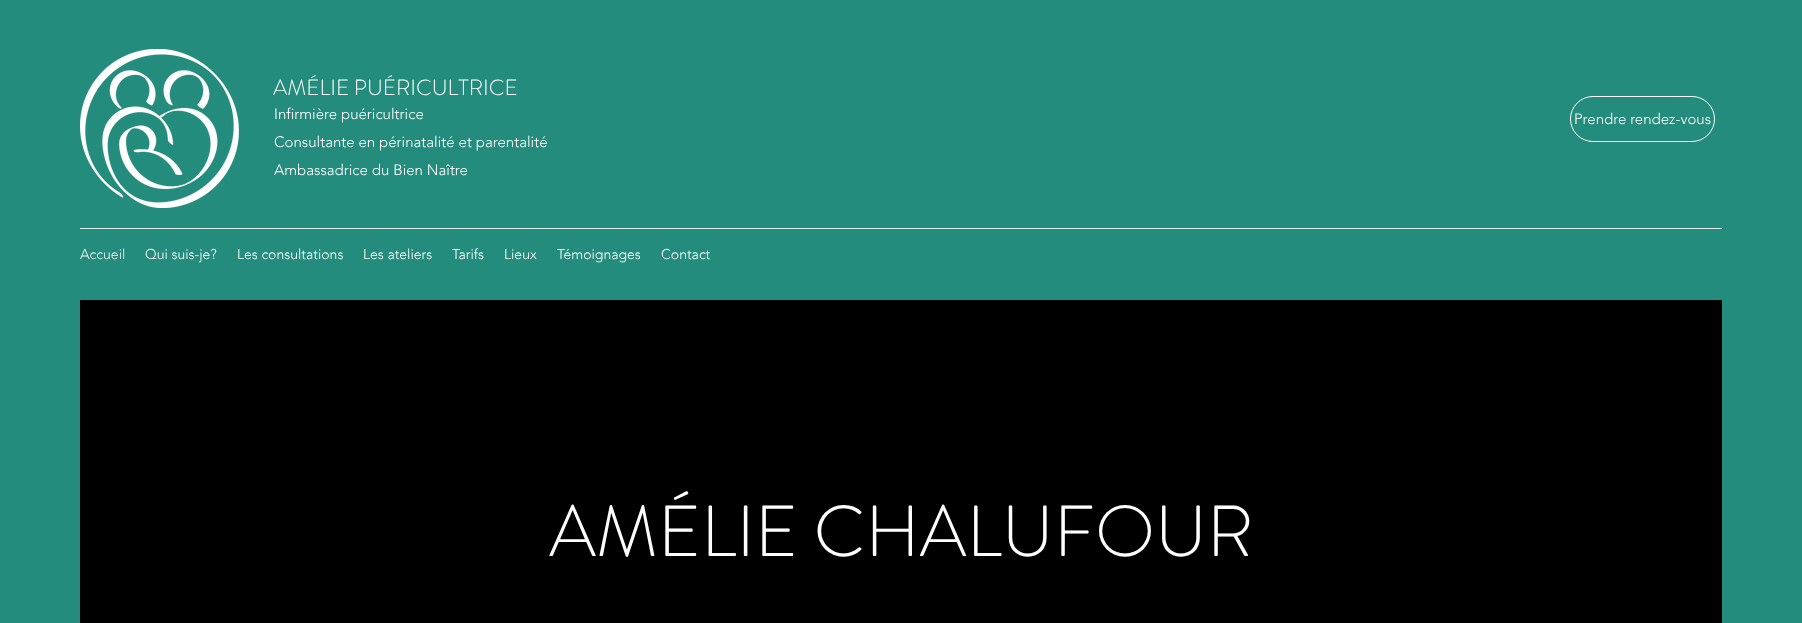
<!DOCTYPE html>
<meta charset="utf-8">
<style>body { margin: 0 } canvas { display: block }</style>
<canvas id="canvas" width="1802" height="623"></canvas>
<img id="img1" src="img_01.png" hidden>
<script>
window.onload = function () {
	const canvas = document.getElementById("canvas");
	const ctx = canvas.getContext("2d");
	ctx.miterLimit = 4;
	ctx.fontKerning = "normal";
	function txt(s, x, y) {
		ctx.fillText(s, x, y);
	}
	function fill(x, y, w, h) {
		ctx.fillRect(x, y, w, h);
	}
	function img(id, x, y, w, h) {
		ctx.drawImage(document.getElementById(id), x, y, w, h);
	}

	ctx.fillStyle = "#248C7C";
	fill(0, 0, 1802, 623);
	img("img1", 80, 49, 159, 159);
	ctx.beginPath();
	ctx.roundRect(1570.5, 96.5, 144, 45, 22.5);
	ctx.strokeStyle = "#FFFFFF";
	ctx.stroke();
	ctx.fillStyle = "#DEEEEB";
	fill(80, 228, 1642, 1);
	ctx.fillStyle = "#000000";
	fill(80, 300, 1642, 323);
	ctx.font = "300 22px 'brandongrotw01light'";
	ctx.fillStyle = "#FFFFFF";
	txt("AMÉLIE PUÉRICULTRICE", 273, 95);
	ctx.font = "300 15px 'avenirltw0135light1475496'";
	txt("Infirmière puéricultrice", 274, 119);
	txt("Consultante en périnatalité et parentalité", 274, 147);
	txt("Ambassadrice du Bien Naître", 274, 175);
	txt("Prendre rendez-vous", 1574, 124);
	ctx.font = "300 14px 'avenirltw0135light1475496'";
	ctx.fillStyle = "#F0F0F0";
	txt("Accueil", 80, 259);
	ctx.fillStyle = "#FFFFFF";
	txt("Qui suis-je?", 145, 259);
	txt("Les consultations", 237, 259);
	txt("Les ateliers", 363, 259);
	txt("Tarifs", 452, 259);
	txt("Lieux", 504, 259);
	txt("Témoignages", 557, 259);
	txt("Contact", 661, 259);
	ctx.font = "300 72px 'brandongrotw01light'";
	txt("AMÉLIE CHALUFOUR", 549, 556);
};
</script>
